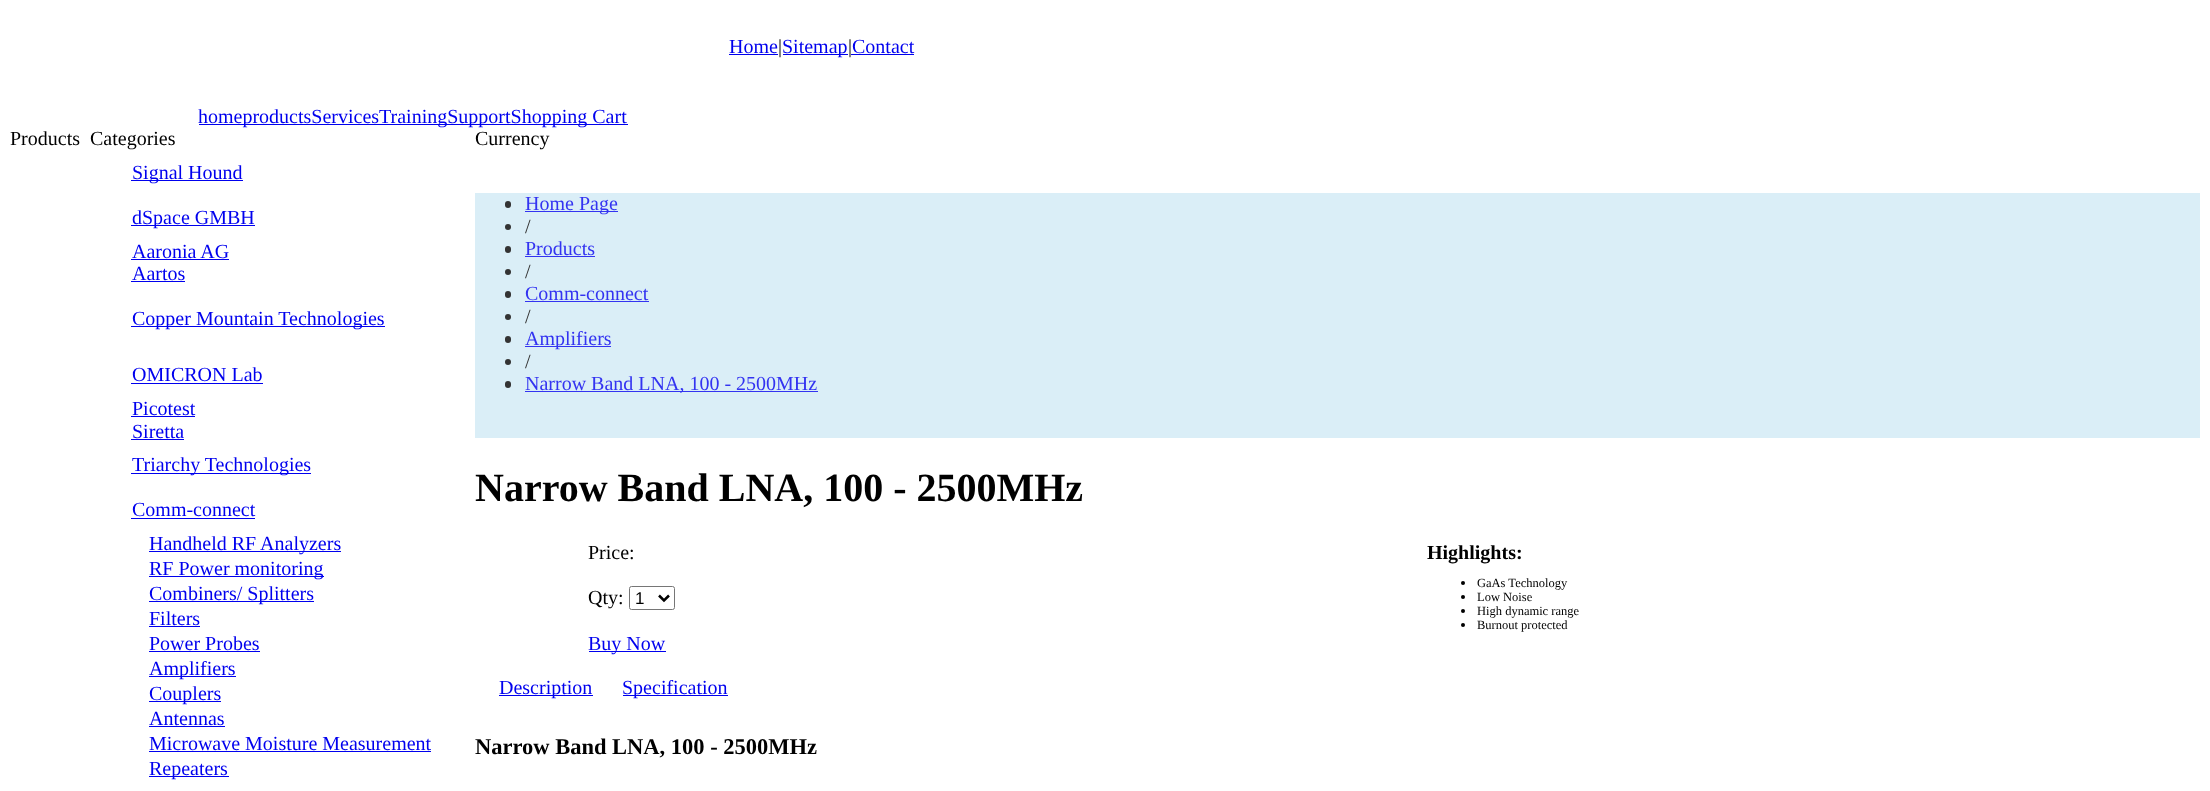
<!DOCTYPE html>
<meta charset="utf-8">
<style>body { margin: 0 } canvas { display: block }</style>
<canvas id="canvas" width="2210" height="791"></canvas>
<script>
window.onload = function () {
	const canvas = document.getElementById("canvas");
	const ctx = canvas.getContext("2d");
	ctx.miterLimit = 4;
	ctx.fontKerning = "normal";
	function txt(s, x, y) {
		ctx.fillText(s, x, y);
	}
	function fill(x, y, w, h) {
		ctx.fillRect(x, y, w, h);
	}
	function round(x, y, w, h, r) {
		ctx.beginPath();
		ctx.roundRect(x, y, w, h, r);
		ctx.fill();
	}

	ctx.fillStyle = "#FFFFFF";
	fill(0, 0, 2210, 791);
	ctx.fillStyle = "#0000EE";
	fill(729, 54, 49, 1);
	fill(783, 54, 65, 1);
	fill(851, 54, 63, 1);
	fill(199, 124, 429, 1);
	fill(131, 180, 112, 1);
	fill(131, 225, 124, 1);
	fill(131, 259, 98, 1);
	fill(131, 281, 54, 1);
	fill(131, 326, 254, 1);
	fill(131, 383, 132, 1);
	fill(131, 416, 64, 1);
	fill(131, 439, 53, 1);
	fill(131, 473, 180, 1);
	fill(131, 518, 124, 1);
	fill(149, 551, 192, 1);
	fill(149, 576, 175, 1);
	fill(149, 601, 165, 1);
	fill(149, 626, 51, 1);
	fill(149, 651, 111, 1);
	fill(149, 676, 87, 1);
	fill(149, 701, 72, 1);
	fill(149, 726, 76, 1);
	fill(149, 751, 282, 1);
	fill(149, 776, 80, 1);
	ctx.fillStyle = "#DAEEF7";
	fill(475, 193, 1725, 245);
	ctx.fillStyle = "#333333";
	round(505, 201, 6, 7, 3);
	ctx.fillStyle = "#3333F1";
	fill(525, 211, 93, 1);
	ctx.fillStyle = "#333333";
	ctx.beginPath();
	ctx.arc(508, 227, 3, 0, Math.PI * 2);
	ctx.fill();
	round(505, 246, 6, 7, 3);
	ctx.fillStyle = "#3333F1";
	fill(525, 256, 70, 1);
	ctx.fillStyle = "#333333";
	ctx.beginPath();
	ctx.arc(508, 272, 3, 0, Math.PI * 2);
	ctx.fill();
	round(505, 291, 6, 7, 3);
	ctx.fillStyle = "#3333F1";
	fill(525, 301, 124, 1);
	ctx.fillStyle = "#333333";
	ctx.beginPath();
	ctx.arc(508, 317, 3, 0, Math.PI * 2);
	ctx.fill();
	round(505, 336, 6, 7, 3);
	ctx.fillStyle = "#3333F1";
	fill(525, 346, 86, 1);
	ctx.fillStyle = "#333333";
	ctx.beginPath();
	ctx.arc(508, 362, 3, 0, Math.PI * 2);
	ctx.fill();
	round(505, 381, 6, 7, 3);
	ctx.fillStyle = "#3333F1";
	fill(525, 391, 293, 1);
	ctx.beginPath();
	ctx.roundRect(629.5, 586.5, 45, 23, 2);
	ctx.strokeStyle = "#767676";
	ctx.stroke();
	ctx.beginPath();
	ctx.moveTo(659, 595.5);
	ctx.lineTo(664, 600.5);
	ctx.lineTo(669, 595.5);
	ctx.strokeStyle = "#000000";
	ctx.lineWidth = 2.5;
	ctx.stroke();
	ctx.fillStyle = "#0000EE";
	fill(589, 651, 77, 1);
	ctx.fillStyle = "#000000";
	ctx.beginPath();
	ctx.arc(1463, 583, 2, 0, Math.PI * 2);
	ctx.fill();
	ctx.beginPath();
	ctx.arc(1463, 597, 2, 0, Math.PI * 2);
	ctx.fill();
	ctx.beginPath();
	ctx.arc(1463, 611, 2, 0, Math.PI * 2);
	ctx.fill();
	ctx.beginPath();
	ctx.arc(1463, 625, 2, 0, Math.PI * 2);
	ctx.fill();
	ctx.fillStyle = "#0000EE";
	fill(499, 695, 94, 1);
	fill(623, 695, 105, 1);
	ctx.font = "20px Liberation Serif";
	txt("Home", 729, 53);
	ctx.fillStyle = "#000000";
	txt("|", 778, 53);
	ctx.fillStyle = "#0000EE";
	txt("Sitemap", 782, 53);
	ctx.fillStyle = "#000000";
	txt("|", 848, 53);
	ctx.fillStyle = "#0000EE";
	txt("Contact", 852, 53);
	txt("homeproductsServicesTrainingSupportShopping Cart", 198, 123);
	ctx.fillStyle = "#000000";
	txt("Products  Categories", 10, 145);
	ctx.fillStyle = "#0000EE";
	txt("Signal Hound", 132, 179);
	txt("dSpace GMBH", 132, 224);
	txt("Aaronia AG", 132, 258);
	txt("Aartos", 132, 280);
	txt("Copper Mountain Technologies", 132, 325);
	txt("OMICRON Lab", 132, 381);
	txt("Picotest", 132, 415);
	txt("Siretta", 132, 438);
	txt("Triarchy Technologies", 132, 471);
	txt("Comm-connect", 132, 516);
	txt("Handheld RF Analyzers", 149, 550);
	txt("RF Power monitoring", 149, 575);
	txt("Combiners/ Splitters", 149, 600);
	txt("Filters", 149, 625);
	txt("Power Probes", 149, 650);
	txt("Amplifiers", 149, 675);
	txt("Couplers", 149, 700);
	txt("Antennas", 149, 725);
	txt("Microwave Moisture Measurement", 149, 750);
	txt("Repeaters", 149, 775);
	ctx.fillStyle = "#000000";
	txt("Currency", 475, 145);
	ctx.fillStyle = "#3333F1";
	txt("Home Page", 525, 210);
	ctx.fillStyle = "#333333";
	txt("/", 525, 233);
	ctx.fillStyle = "#3333F1";
	txt("Products", 525, 255);
	ctx.fillStyle = "#333333";
	txt("/", 525, 278);
	ctx.fillStyle = "#3333F1";
	txt("Comm-connect", 525, 300);
	ctx.fillStyle = "#333333";
	txt("/", 525, 323);
	ctx.fillStyle = "#3333F1";
	txt("Amplifiers", 525, 345);
	ctx.fillStyle = "#333333";
	txt("/", 525, 368);
	ctx.fillStyle = "#3333F1";
	txt("Narrow Band LNA, 100 - 2500MHz", 525, 390);
	ctx.font = "bold 40px Liberation Serif";
	ctx.fillStyle = "#000000";
	txt("Narrow Band LNA, 100 - 2500MHz", 475, 501);
	ctx.font = "20px Liberation Serif";
	txt("Price:", 588, 559);
	txt("Qty:", 588, 604);
	ctx.font = "17px Liberation Sans";
	txt("1", 635, 604);
	ctx.font = "20px Liberation Serif";
	ctx.fillStyle = "#0000EE";
	txt("Buy Now", 588, 650);
	ctx.font = "bold 20px Liberation Serif";
	ctx.fillStyle = "#000000";
	txt("Highlights:", 1427, 559);
	ctx.font = "12.5px Liberation Serif";
	txt("GaAs Technology", 1477, 587);
	txt("Low Noise", 1477, 601);
	txt("High dynamic range", 1477, 615);
	txt("Burnout protected", 1477, 629);
	ctx.font = "20px Liberation Serif";
	ctx.fillStyle = "#0000EE";
	txt("Description", 499, 694);
	txt("Specification", 622, 694);
	ctx.font = "bold 22.5px Liberation Serif";
	ctx.fillStyle = "#000000";
	txt("Narrow Band LNA, 100 - 2500MHz", 475, 754);
};
</script>
